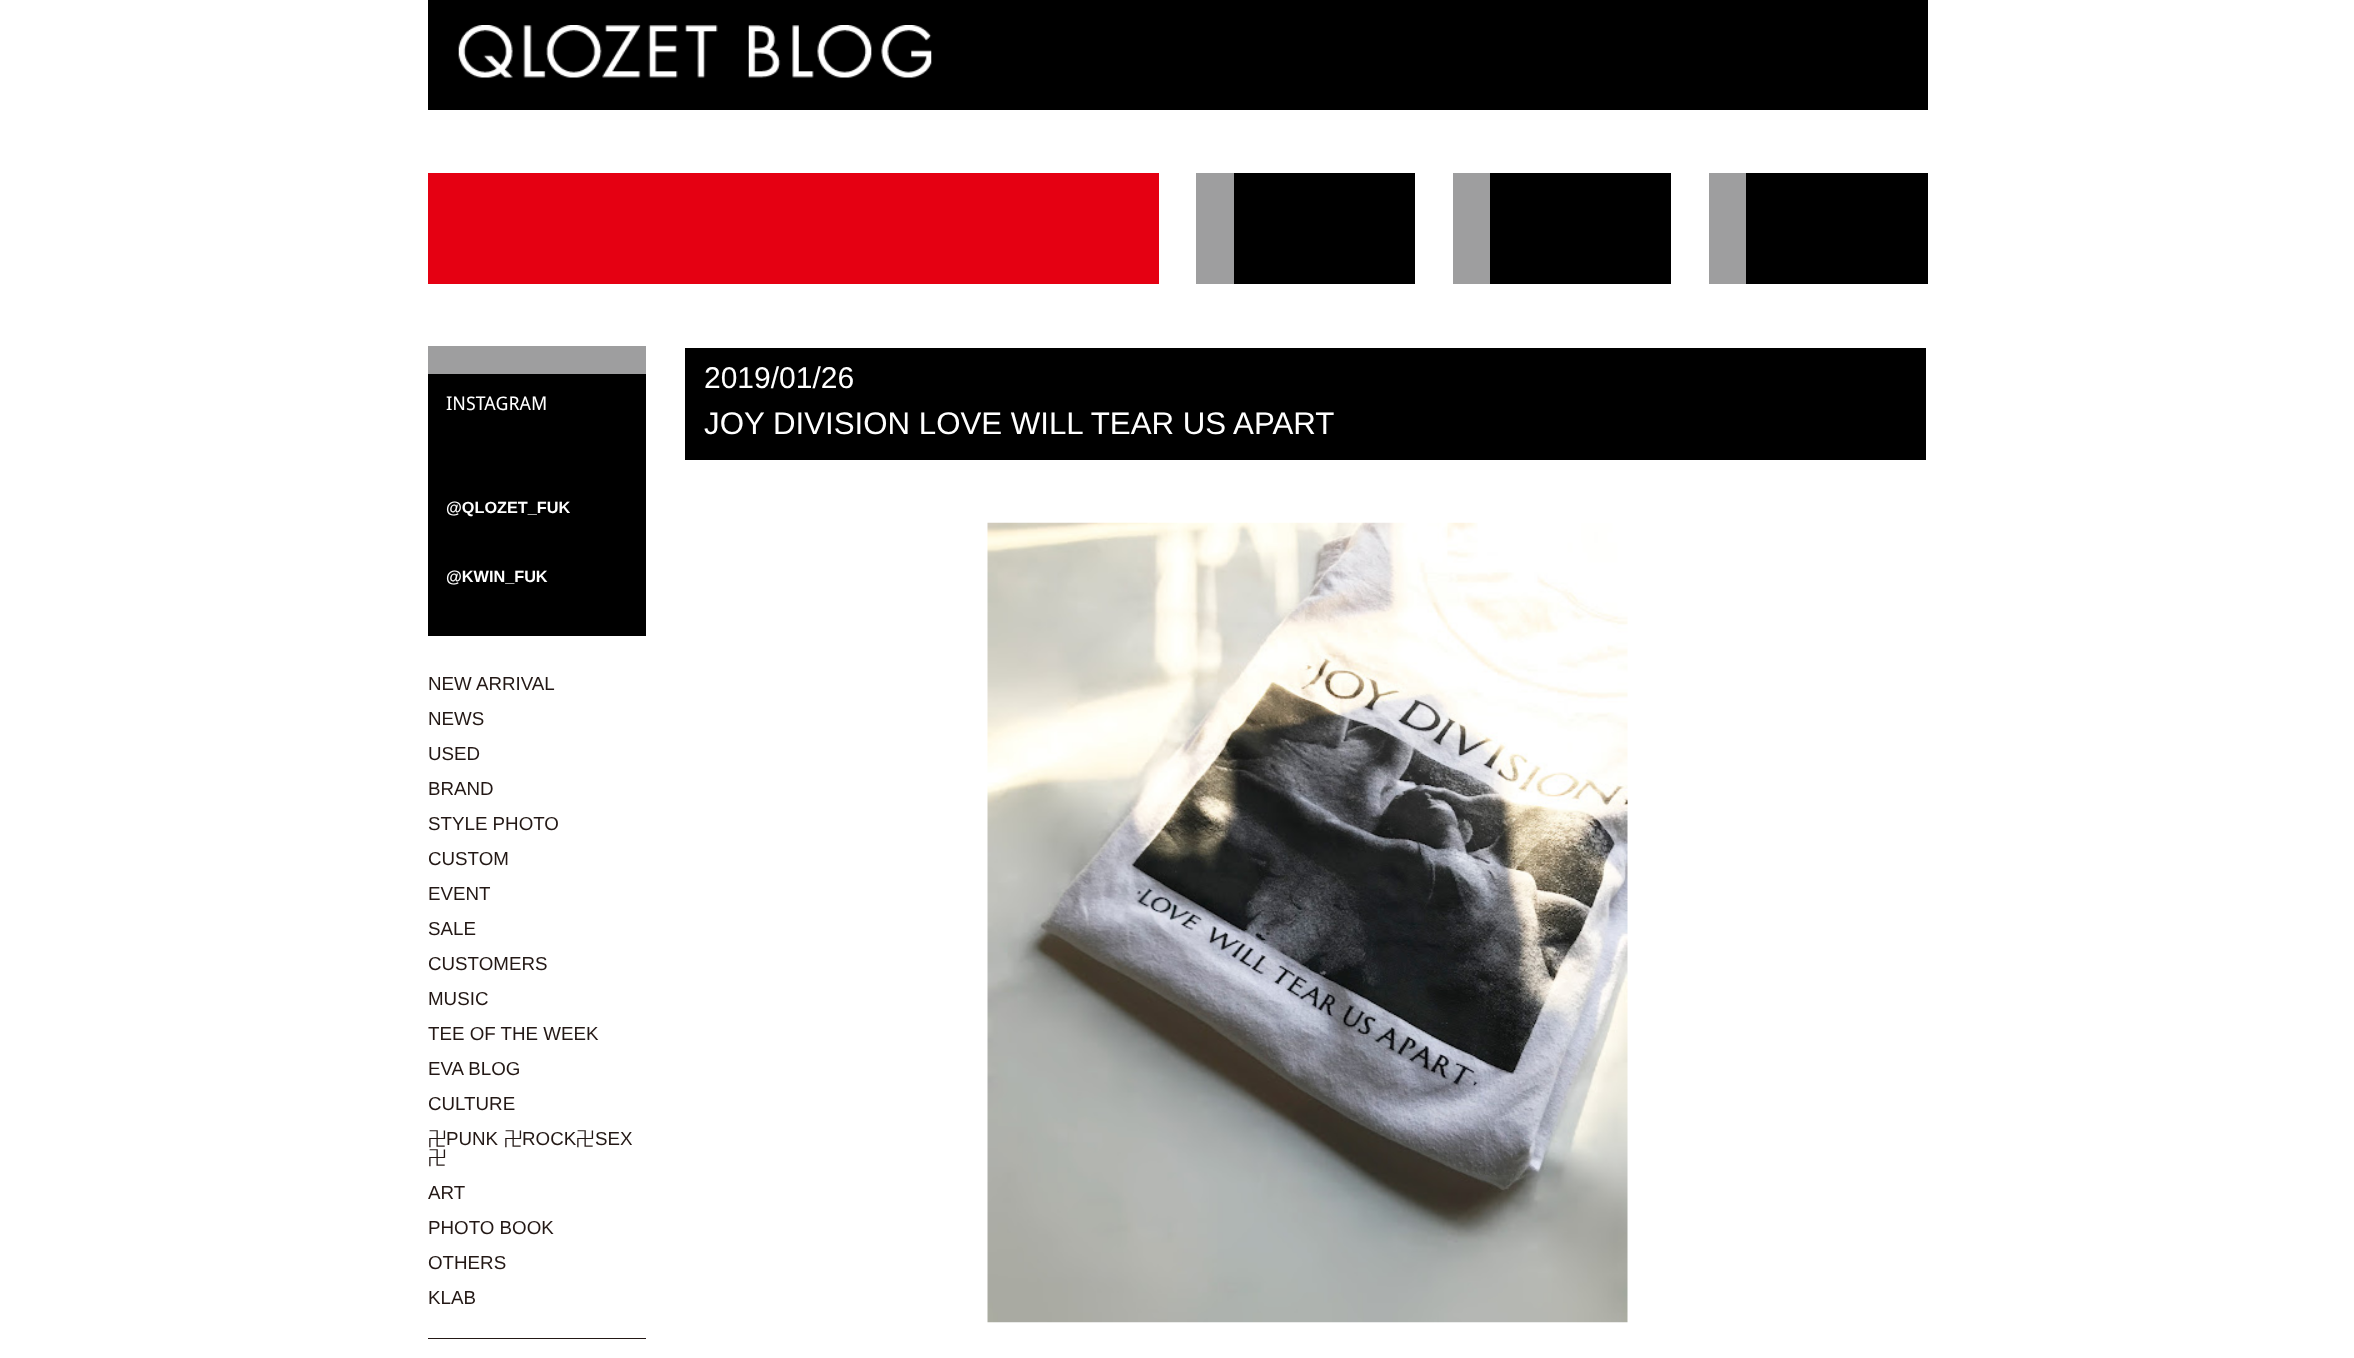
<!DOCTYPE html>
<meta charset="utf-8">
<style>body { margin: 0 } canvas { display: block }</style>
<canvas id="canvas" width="2354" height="1358"></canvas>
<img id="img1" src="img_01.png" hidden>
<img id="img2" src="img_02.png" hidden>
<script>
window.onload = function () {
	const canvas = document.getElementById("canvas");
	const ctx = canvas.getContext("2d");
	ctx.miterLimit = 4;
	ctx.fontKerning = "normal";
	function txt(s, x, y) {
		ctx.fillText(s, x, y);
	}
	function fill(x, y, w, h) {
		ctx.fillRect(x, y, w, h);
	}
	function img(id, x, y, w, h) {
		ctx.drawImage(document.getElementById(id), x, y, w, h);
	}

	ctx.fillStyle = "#FFFFFF";
	fill(0, 0, 2354, 1358);
	ctx.fillStyle = "#000000";
	fill(428, 0, 1500, 110);
	img("img1", 458, 25, 474, 53);
	ctx.fillStyle = "#E50012";
	fill(428, 173, 731, 111);
	ctx.fillStyle = "#000000";
	fill(1234, 173, 181, 111);
	ctx.fillStyle = "#9E9E9F";
	fill(1196, 173, 38, 111);
	ctx.fillStyle = "#000000";
	fill(1490, 173, 181, 111);
	ctx.fillStyle = "#9E9E9F";
	fill(1453, 173, 37, 111);
	ctx.fillStyle = "#000000";
	fill(1746, 173, 182, 111);
	ctx.fillStyle = "#9E9E9F";
	fill(1709, 173, 37, 111);
	ctx.fillStyle = "#000000";
	fill(428, 374, 218, 262);
	ctx.fillStyle = "#9E9E9F";
	fill(428, 346, 218, 28);
	ctx.fillStyle = "#231815";
	fill(428, 1338, 218, 1);
	ctx.fillStyle = "#000000";
	fill(685, 348, 1241, 112);
	img("img2", 987, 522, 641, 801);
	ctx.font = "18.75px Droid Sans";
	ctx.fillStyle = "#FFFFFF";
	txt("INSTAGRAM", 446, 410);
	ctx.font = "bold 16.25px Liberation Sans";
	txt("@QLOZET_FUK", 446, 513);
	txt("@KWIN_FUK", 446, 582);
	ctx.font = "18.75px Liberation Sans";
	ctx.fillStyle = "#231815";
	txt("NEW ARRIVAL", 428, 690);
	txt("NEWS", 428, 725);
	txt("USED", 428, 760);
	txt("BRAND", 428, 795);
	txt("STYLE PHOTO", 428, 830);
	txt("CUSTOM", 428, 865);
	txt("EVENT", 428, 900);
	txt("SALE", 428, 935);
	txt("CUSTOMERS", 428, 970);
	txt("MUSIC", 428, 1005);
	txt("TEE OF THE WEEK", 428, 1040);
	txt("EVA BLOG", 428, 1075);
	txt("CULTURE", 428, 1110);
	ctx.font = "500 18.75px WenQuanYi Zen Hei";
	txt("卍", 428, 1145);
	ctx.font = "18.75px Liberation Sans";
	txt("PUNK", 446, 1145);
	ctx.font = "500 18.75px WenQuanYi Zen Hei";
	txt("卍", 504, 1145);
	ctx.font = "18.75px Liberation Sans";
	txt("ROCK", 522, 1145);
	ctx.font = "500 18.75px WenQuanYi Zen Hei";
	txt("卍", 576, 1145);
	ctx.font = "18.75px Liberation Sans";
	txt("SEX", 595, 1145);
	ctx.font = "500 18.75px WenQuanYi Zen Hei";
	txt("卍", 428, 1164);
	ctx.font = "18.75px Liberation Sans";
	txt("ART", 428, 1199);
	txt("PHOTO BOOK", 428, 1234);
	txt("OTHERS", 428, 1269);
	txt("KLAB", 428, 1304);
	ctx.font = "30px Liberation Sans";
	ctx.fillStyle = "#FFFFFF";
	txt("2019/01/26", 704, 388);
	ctx.font = "31.25px Liberation Sans";
	txt("JOY DIVISION LOVE WILL TEAR US APART", 704, 434);
};
</script>
